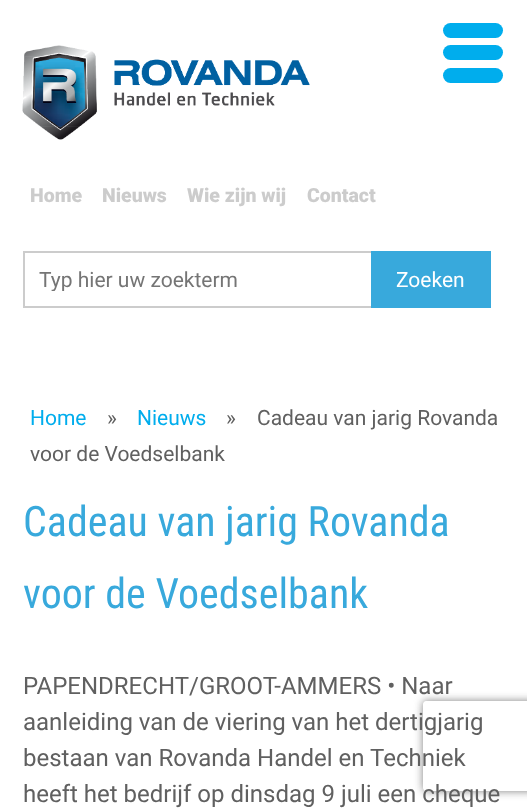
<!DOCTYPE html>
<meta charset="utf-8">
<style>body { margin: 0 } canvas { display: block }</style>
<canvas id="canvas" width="527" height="811"></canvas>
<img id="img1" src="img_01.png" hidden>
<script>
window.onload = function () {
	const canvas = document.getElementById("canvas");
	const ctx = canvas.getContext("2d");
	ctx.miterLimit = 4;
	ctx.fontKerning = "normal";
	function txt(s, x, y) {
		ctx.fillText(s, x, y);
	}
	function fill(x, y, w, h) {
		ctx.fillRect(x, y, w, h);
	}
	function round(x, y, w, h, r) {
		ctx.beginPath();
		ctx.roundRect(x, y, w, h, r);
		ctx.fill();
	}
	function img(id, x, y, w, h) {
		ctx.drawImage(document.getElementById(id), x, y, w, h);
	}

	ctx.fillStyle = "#FFFFFF";
	fill(0, 0, 527, 811);
	ctx.fillStyle = "#00ADED";
	round(443, 23, 60, 15, 7.5);
	round(443, 45, 60, 15, 7.5);
	round(443, 68, 60, 15, 7.5);
	img("img1", 22, 45, 288, 95);
	ctx.strokeStyle = "#CCCCCC";
	ctx.lineWidth = 2;
	ctx.strokeRect(24, 252, 361, 55);
	ctx.fillStyle = "#38A9DC";
	fill(371, 251, 120, 57);
	ctx.save();
	ctx.beginPath();
	ctx.moveTo(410, 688);
	ctx.lineTo(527, 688);
	ctx.lineTo(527, 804);
	ctx.lineTo(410, 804);
	ctx.closePath();
	ctx.moveTo(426, 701);
	ctx.lineTo(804, 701);
	ctx.bezierCurveTo(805.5, 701, 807, 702.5, 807, 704);
	ctx.lineTo(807, 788);
	ctx.bezierCurveTo(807, 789.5, 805.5, 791, 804, 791);
	ctx.lineTo(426, 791);
	ctx.bezierCurveTo(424.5, 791, 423, 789.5, 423, 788);
	ctx.lineTo(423, 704);
	ctx.bezierCurveTo(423, 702.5, 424.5, 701, 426, 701);
	ctx.closePath();
	ctx.clip("evenodd");
	ctx.fillStyle = "#808080";
	ctx.filter = "blur(4px)";
	ctx.beginPath();
	ctx.roundRect(423, 701, 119, 90, 3);
	ctx.fill();
	ctx.filter = "none";
	ctx.restore();
	ctx.font = "900 19.5px Roboto";
	ctx.fillStyle = "#CCCCCC";
	txt("Home", 30, 202);
	txt("Nieuws", 102, 202);
	txt("Wie zijn wij", 187, 202);
	txt("Contact", 307, 202);
	ctx.save();
	ctx.beginPath();
	ctx.rect(39, 267, 330, 24);
	ctx.clip();
	ctx.font = "21px Roboto";
	ctx.fillStyle = "#757575";
	txt("Typ hier uw zoekterm", 39, 287);
	ctx.restore();
	ctx.font = "21px Roboto";
	ctx.fillStyle = "#FFFFFF";
	txt("Zoeken", 396, 287);
	ctx.fillStyle = "#00ADED";
	txt("Home", 30, 425);
	ctx.fillStyle = "#606060";
	txt("»", 107, 425);
	ctx.fillStyle = "#00ADED";
	txt("Nieuws", 137, 425);
	ctx.fillStyle = "#606060";
	txt("»", 226, 425);
	txt("Cadeau van jarig Rovanda", 257, 425);
	txt("voor de Voedselbank", 30, 461);
	ctx.font = "42px Roboto Condensed";
	ctx.fillStyle = "#38A9DC";
	txt("Cadeau van jarig Rovanda", 23, 536);
	txt("voor de Voedselbank", 23, 608);
	ctx.font = "24px Roboto";
	ctx.fillStyle = "#606060";
	txt("PAPENDRECHT/GROOT-AMMERS • Naar", 23, 694);
	txt("aanleiding van de viering van het dertigjarig", 23, 730);
	txt("bestaan van Rovanda Handel en Techniek", 23, 766);
	txt("heeft het bedrijf op dinsdag 9 juli een cheque", 23, 802);
};
</script>
